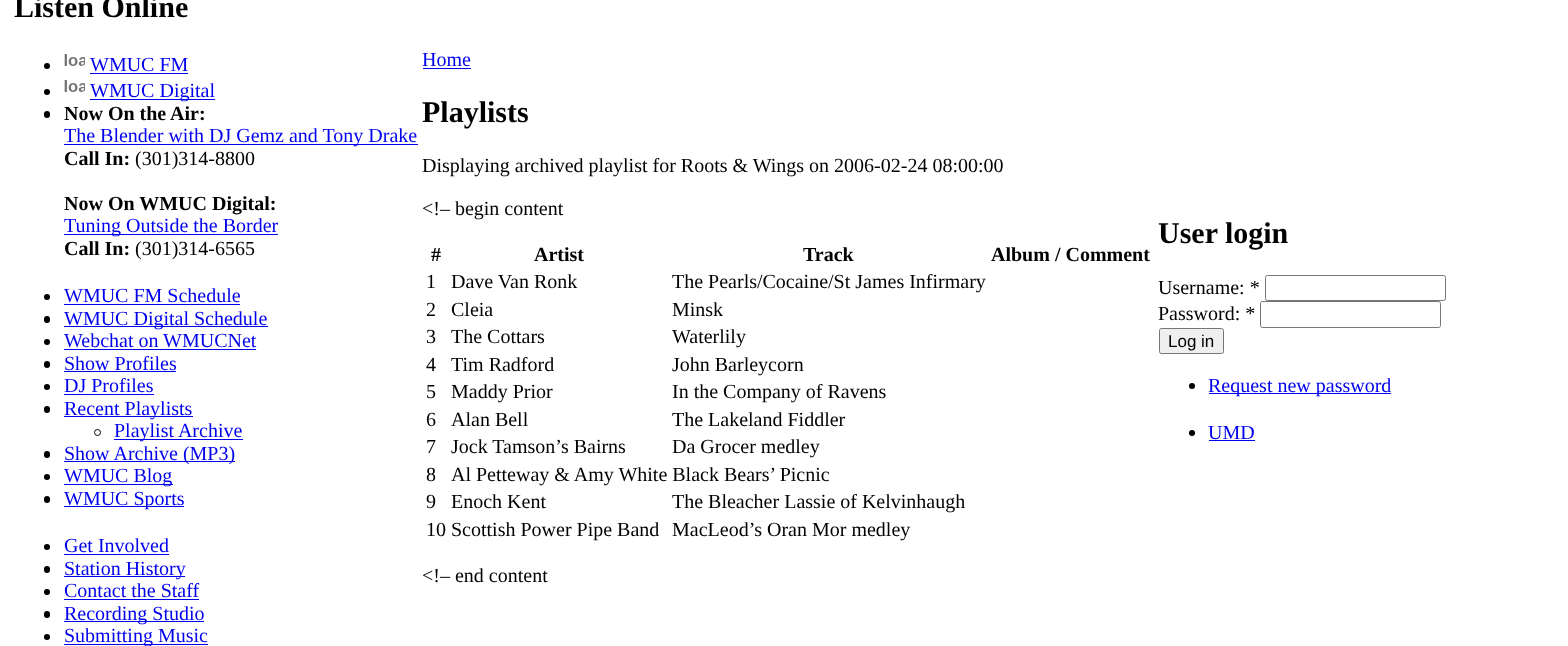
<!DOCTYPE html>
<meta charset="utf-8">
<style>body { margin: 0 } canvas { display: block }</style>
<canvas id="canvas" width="1568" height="646"></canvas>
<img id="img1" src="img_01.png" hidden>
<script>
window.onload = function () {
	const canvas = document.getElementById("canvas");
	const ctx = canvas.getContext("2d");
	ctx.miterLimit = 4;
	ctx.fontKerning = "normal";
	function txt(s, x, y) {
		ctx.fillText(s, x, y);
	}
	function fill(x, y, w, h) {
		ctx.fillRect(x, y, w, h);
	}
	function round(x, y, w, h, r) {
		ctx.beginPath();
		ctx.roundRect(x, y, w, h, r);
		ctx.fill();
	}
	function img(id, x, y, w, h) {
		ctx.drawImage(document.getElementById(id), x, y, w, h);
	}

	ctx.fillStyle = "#FFFFFF";
	fill(0, 0, 1568, 646);
	ctx.fillStyle = "#000000";
	ctx.beginPath();
	ctx.arc(47, 66, 3, 0, Math.PI * 2);
	ctx.fill();
	img("img1", 64, 54, 21, 12);
	ctx.fillStyle = "#0000EE";
	fill(90, 73, 98, 1);
	ctx.fillStyle = "#000000";
	ctx.beginPath();
	ctx.arc(47, 92, 3, 0, Math.PI * 2);
	ctx.fill();
	img("img1", 64, 80, 21, 12);
	ctx.fillStyle = "#0000EE";
	fill(90, 99, 125, 1);
	ctx.fillStyle = "#000000";
	round(44, 111, 6, 7, 3);
	ctx.fillStyle = "#0000EE";
	fill(64, 144, 354, 1);
	fill(64, 234, 214, 1);
	ctx.fillStyle = "#000000";
	ctx.beginPath();
	ctx.arc(47, 297, 3, 0, Math.PI * 2);
	ctx.fill();
	ctx.fillStyle = "#0000EE";
	fill(64, 304, 176, 1);
	ctx.fillStyle = "#000000";
	round(44, 316, 6, 7, 3);
	ctx.fillStyle = "#0000EE";
	fill(64, 326, 204, 1);
	ctx.fillStyle = "#000000";
	ctx.beginPath();
	ctx.arc(47, 342, 3, 0, Math.PI * 2);
	ctx.fill();
	ctx.fillStyle = "#0000EE";
	fill(64, 349, 192, 1);
	ctx.fillStyle = "#000000";
	round(44, 361, 6, 7, 3);
	ctx.fillStyle = "#0000EE";
	fill(64, 371, 112, 1);
	ctx.fillStyle = "#000000";
	ctx.beginPath();
	ctx.arc(47, 387, 3, 0, Math.PI * 2);
	ctx.fill();
	ctx.fillStyle = "#0000EE";
	fill(64, 394, 90, 1);
	ctx.fillStyle = "#000000";
	round(44, 406, 6, 7, 3);
	ctx.fillStyle = "#0000EE";
	fill(64, 416, 129, 1);
	ctx.beginPath();
	ctx.arc(97.5, 432.5, 3, 0, Math.PI * 2);
	ctx.strokeStyle = "#000000";
	ctx.stroke();
	fill(114, 439, 129, 1);
	ctx.fillStyle = "#000000";
	round(44, 451, 6, 7, 3);
	ctx.fillStyle = "#0000EE";
	fill(64, 461, 171, 1);
	ctx.fillStyle = "#000000";
	ctx.beginPath();
	ctx.arc(47, 477, 3, 0, Math.PI * 2);
	ctx.fill();
	ctx.fillStyle = "#0000EE";
	fill(64, 484, 109, 1);
	ctx.fillStyle = "#000000";
	round(44, 496, 6, 7, 3);
	ctx.fillStyle = "#0000EE";
	fill(64, 506, 120, 1);
	ctx.fillStyle = "#000000";
	ctx.beginPath();
	ctx.arc(47, 547, 3, 0, Math.PI * 2);
	ctx.fill();
	ctx.fillStyle = "#0000EE";
	fill(64, 554, 105, 1);
	ctx.fillStyle = "#000000";
	round(44, 566, 6, 7, 3);
	ctx.fillStyle = "#0000EE";
	fill(64, 576, 121, 1);
	ctx.fillStyle = "#000000";
	ctx.beginPath();
	ctx.arc(47, 592, 3, 0, Math.PI * 2);
	ctx.fill();
	ctx.fillStyle = "#0000EE";
	fill(64, 599, 135, 1);
	ctx.fillStyle = "#000000";
	round(44, 611, 6, 7, 3);
	ctx.fillStyle = "#0000EE";
	fill(64, 621, 140, 1);
	ctx.fillStyle = "#000000";
	ctx.beginPath();
	ctx.arc(47, 637, 3, 0, Math.PI * 2);
	ctx.fill();
	ctx.fillStyle = "#0000EE";
	fill(64, 644, 144, 1);
	fill(423, 68, 48, 1);
	ctx.beginPath();
	ctx.roundRect(1265.5, 275.5, 180, 25, 2);
	ctx.strokeStyle = "#767676";
	ctx.stroke();
	ctx.beginPath();
	ctx.roundRect(1260.5, 301.5, 180, 26, 2);
	ctx.stroke();
	ctx.fillStyle = "#EFEFEF";
	ctx.beginPath();
	ctx.roundRect(1159.5, 328.5, 64, 25, 2);
	ctx.fill();
	ctx.stroke();
	ctx.fillStyle = "#000000";
	ctx.beginPath();
	ctx.arc(1192, 386, 3, 0, Math.PI * 2);
	ctx.fill();
	ctx.fillStyle = "#0000EE";
	fill(1209, 393, 182, 1);
	ctx.fillStyle = "#000000";
	ctx.beginPath();
	ctx.arc(1192, 433, 3, 0, Math.PI * 2);
	ctx.fill();
	ctx.fillStyle = "#0000EE";
	fill(1209, 440, 46, 1);
	ctx.font = "bold 30px Liberation Serif";
	ctx.fillStyle = "#000000";
	txt("Listen Online", 14, 17);
	ctx.font = "20px Liberation Serif";
	ctx.fillStyle = "#0000EE";
	txt("WMUC FM", 90, 71);
	txt("WMUC Digital", 90, 97);
	ctx.font = "bold 20px Liberation Serif";
	ctx.fillStyle = "#000000";
	txt("Now On the Air:", 64, 120);
	ctx.font = "20px Liberation Serif";
	ctx.fillStyle = "#0000EE";
	txt("The Blender with DJ Gemz and Tony Drake", 64, 142);
	ctx.font = "bold 20px Liberation Serif";
	ctx.fillStyle = "#000000";
	txt("Call In:", 64, 165);
	ctx.font = "20px Liberation Serif";
	txt("(301)314-8800", 135, 165);
	ctx.font = "bold 20px Liberation Serif";
	txt("Now On WMUC Digital:", 64, 210);
	ctx.font = "20px Liberation Serif";
	ctx.fillStyle = "#0000EE";
	txt("Tuning Outside the Border", 64, 232);
	ctx.font = "bold 20px Liberation Serif";
	ctx.fillStyle = "#000000";
	txt("Call In:", 64, 255);
	ctx.font = "20px Liberation Serif";
	txt("(301)314-6565", 135, 255);
	ctx.fillStyle = "#0000EE";
	txt("WMUC FM Schedule", 64, 302);
	txt("WMUC Digital Schedule", 64, 325);
	txt("Webchat on WMUCNet", 64, 347);
	txt("Show Profiles", 64, 370);
	txt("DJ Profiles", 64, 392);
	txt("Recent Playlists", 64, 415);
	txt("Playlist Archive", 114, 437);
	txt("Show Archive (MP3)", 64, 460);
	txt("WMUC Blog", 64, 482);
	txt("WMUC Sports", 64, 505);
	txt("Get Involved", 64, 552);
	txt("Station History", 64, 575);
	txt("Contact the Staff", 64, 597);
	txt("Recording Studio", 64, 620);
	txt("Submitting Music", 64, 642);
	txt("Home", 422, 66);
	ctx.font = "bold 30px Liberation Serif";
	ctx.fillStyle = "#000000";
	txt("Playlists", 422, 122);
	ctx.font = "20px Liberation Serif";
	txt("Displaying archived playlist for Roots & Wings on 2006-02-24 08:00:00", 422, 172);
	txt("<!– begin content", 422, 215);
	ctx.font = "bold 20px Liberation Serif";
	txt("#", 431, 261);
	txt("Artist", 534, 261);
	txt("Track", 803, 261);
	txt("Album / Comment", 991, 261);
	ctx.font = "20px Liberation Serif";
	txt("1", 426, 288);
	txt("Dave Van Ronk", 451, 288);
	txt("The Pearls/Cocaine/St James Infirmary", 672, 288);
	txt("2", 426, 316);
	txt("Cleia", 451, 316);
	txt("Minsk", 672, 316);
	txt("3", 426, 343);
	txt("The Cottars", 451, 343);
	txt("Waterlily", 672, 343);
	txt("4", 426, 371);
	txt("Tim Radford", 451, 371);
	txt("John Barleycorn", 672, 371);
	txt("5", 426, 398);
	txt("Maddy Prior", 451, 398);
	txt("In the Company of Ravens", 672, 398);
	txt("6", 426, 426);
	txt("Alan Bell", 451, 426);
	txt("The Lakeland Fiddler", 672, 426);
	txt("7", 426, 453);
	txt("Jock Tamson’s Bairns", 451, 453);
	txt("Da Grocer medley", 672, 453);
	txt("8", 426, 481);
	txt("Al Petteway & Amy White Black Bears’ Picnic", 451, 481);
	txt("9", 426, 508);
	txt("Enoch Kent", 451, 508);
	txt("The Bleacher Lassie of Kelvinhaugh", 672, 508);
	txt("10 Scottish Power Pipe Band", 426, 536);
	txt("MacLeod’s Oran Mor medley", 672, 536);
	txt("<!– end content", 422, 582);
	ctx.font = "bold 30px Liberation Serif";
	txt("User login", 1158, 243);
	ctx.font = "20px Liberation Serif";
	txt("Username: *", 1158, 294);
	txt("Password: *", 1158, 320);
	ctx.font = "17px Liberation Sans";
	txt("Log in", 1168, 347);
	ctx.font = "20px Liberation Serif";
	ctx.fillStyle = "#0000EE";
	txt("Request new password", 1208, 392);
	txt("UMD", 1208, 439);
};
</script>
